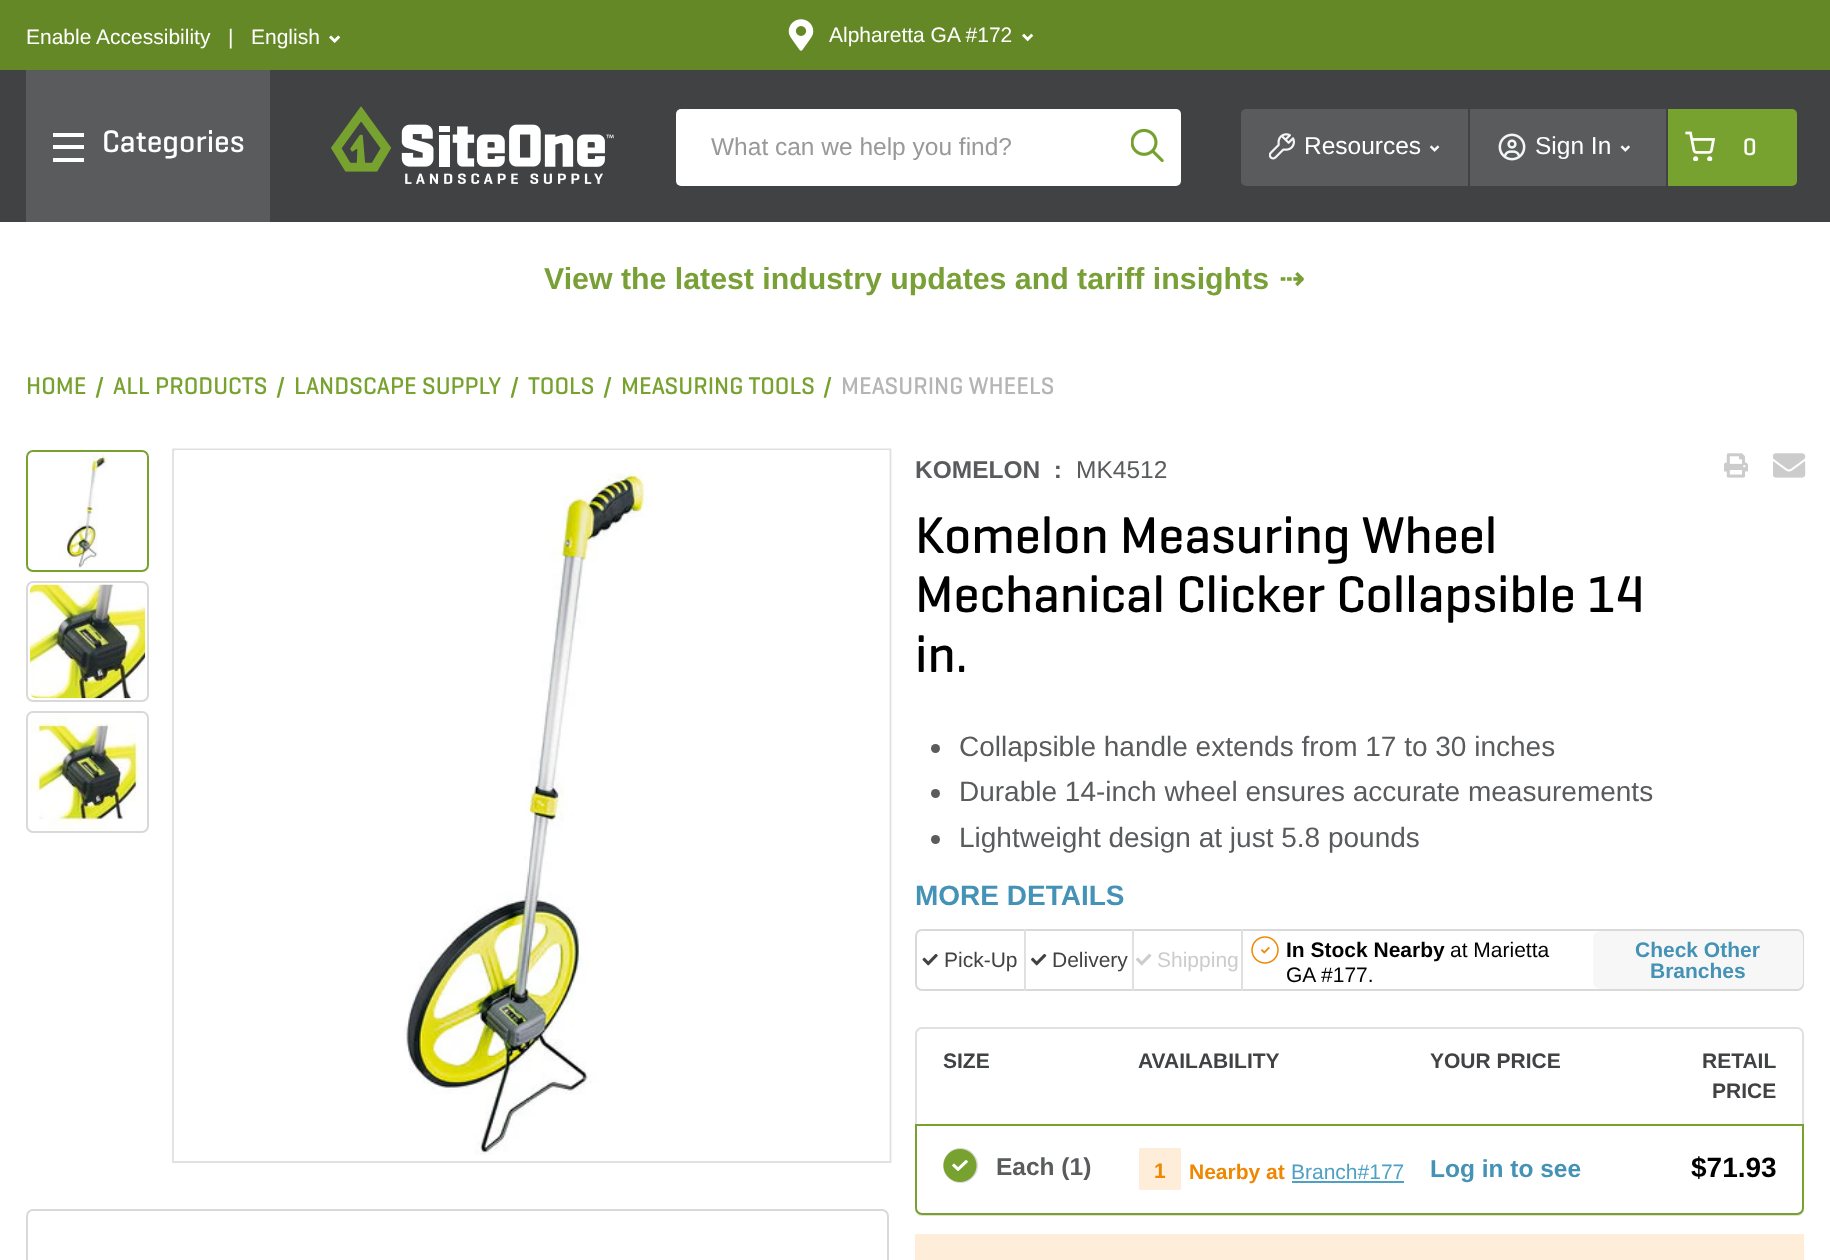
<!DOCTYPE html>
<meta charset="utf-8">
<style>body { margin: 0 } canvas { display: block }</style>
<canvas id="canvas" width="1830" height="1260"></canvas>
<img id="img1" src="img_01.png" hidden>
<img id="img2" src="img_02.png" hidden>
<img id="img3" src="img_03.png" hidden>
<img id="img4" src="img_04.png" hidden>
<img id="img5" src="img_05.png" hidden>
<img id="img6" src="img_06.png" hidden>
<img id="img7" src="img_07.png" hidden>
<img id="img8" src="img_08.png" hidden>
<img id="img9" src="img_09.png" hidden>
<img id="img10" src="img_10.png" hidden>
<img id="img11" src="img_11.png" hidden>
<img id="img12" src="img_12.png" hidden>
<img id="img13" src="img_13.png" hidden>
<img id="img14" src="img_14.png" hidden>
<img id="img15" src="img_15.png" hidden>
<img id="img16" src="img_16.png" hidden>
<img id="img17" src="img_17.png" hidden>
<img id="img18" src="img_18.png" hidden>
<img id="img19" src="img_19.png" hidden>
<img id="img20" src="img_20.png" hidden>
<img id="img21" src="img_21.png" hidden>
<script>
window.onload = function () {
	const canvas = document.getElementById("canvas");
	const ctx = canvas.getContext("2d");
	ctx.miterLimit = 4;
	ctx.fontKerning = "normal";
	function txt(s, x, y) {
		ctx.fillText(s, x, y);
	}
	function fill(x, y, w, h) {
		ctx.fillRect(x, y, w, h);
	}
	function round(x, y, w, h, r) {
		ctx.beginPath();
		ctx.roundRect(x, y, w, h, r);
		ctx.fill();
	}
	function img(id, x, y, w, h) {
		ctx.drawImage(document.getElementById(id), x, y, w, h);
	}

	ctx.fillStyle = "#FFFFFF";
	fill(0, 0, 1830, 1260);
	ctx.fillStyle = "#414244";
	fill(0, 70, 1830, 152);
	ctx.fillStyle = "#648825";
	fill(0, 0, 1830, 70);
	img("img1", 329, 35, 12, 8);
	img("img2", 788, 19, 26, 32);
	img("img3", 1022, 33, 12, 9);
	ctx.fillStyle = "#5A5B5D";
	fill(26, 70, 244, 152);
	ctx.fillStyle = "#FFFFFF";
	fill(53, 133, 31, 4);
	fill(53, 145, 31, 4);
	fill(53, 158, 31, 4);
	img("img4", 331, 106, 283, 78);
	ctx.beginPath();
	ctx.roundRect(676, 109, 437, 77, [5, 0, 0, 5]);
	ctx.fill();
	ctx.beginPath();
	ctx.roundRect(1113, 109, 68, 77, [0, 5, 5, 0]);
	ctx.fill();
	img("img5", 1131, 128, 33, 35);
	ctx.fillStyle = "#5A5B5D";
	ctx.beginPath();
	ctx.roundRect(1242, 110, 225, 75, [4, 0, 0, 4]);
	ctx.fill();
	ctx.strokeStyle = "#5A5B5D";
	ctx.lineWidth = 2;
	ctx.stroke();
	img("img6", 1269, 133, 26, 27);
	img("img7", 1429, 145, 11, 7);
	fill(1470, 109, 196, 77);
	img("img8", 1498, 133, 28, 28);
	img("img9", 1620, 145, 10, 7);
	ctx.fillStyle = "#78A22F";
	ctx.beginPath();
	ctx.roundRect(1670.5, 111.5, 124, 72, [0, 2.5, 2.5, 0]);
	ctx.fill();
	ctx.strokeStyle = "#78A22F";
	ctx.lineWidth = 5;
	ctx.stroke();
	img("img10", 1685, 131, 30, 30);
	ctx.beginPath();
	ctx.roundRect(27, 451, 121, 120, 6);
	ctx.lineWidth = 2;
	ctx.stroke();
	img("img11", 59, 453, 49, 115);
	ctx.beginPath();
	ctx.roundRect(27, 582, 121, 119, 6);
	ctx.strokeStyle = "#D9D9D9";
	ctx.stroke();
	img("img12", 29, 584, 117, 115);
	ctx.beginPath();
	ctx.roundRect(27, 712, 121, 120, 6);
	ctx.stroke();
	img("img13", 30, 714, 115, 116);
	ctx.beginPath();
	ctx.moveTo(890.5, 449.5);
	ctx.lineTo(890.5, 1162);
	ctx.lineTo(173, 1162);
	ctx.lineTo(173, 449.5);
	ctx.closePath();
	ctx.strokeStyle = "#E0E0E0";
	ctx.lineWidth = 1.8;
	ctx.stroke();
	ctx.fillStyle = "#FFFFFF";
	fill(175, 450, 714, 1);
	img("img14", 403, 473, 249, 682);
	ctx.beginPath();
	ctx.roundRect(27, 1210, 861, 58, 6);
	ctx.strokeStyle = "#D9D9D9";
	ctx.lineWidth = 2;
	ctx.stroke();
	img("img15", 1724, 453, 24, 25);
	img("img16", 1773, 453, 33, 25);
	ctx.fillStyle = "#5A5B5D";
	ctx.beginPath();
	ctx.arc(935.5, 748.5, 4.5, 0, Math.PI * 2);
	ctx.fill();
	ctx.beginPath();
	ctx.arc(935.5, 793.5, 4.5, 0, Math.PI * 2);
	ctx.fill();
	ctx.beginPath();
	ctx.arc(935.5, 839.5, 4.5, 0, Math.PI * 2);
	ctx.fill();
	ctx.beginPath();
	ctx.roundRect(916, 930, 887, 60, 6);
	ctx.stroke();
	ctx.fillStyle = "#E0E0E0";
	fill(1024, 929, 2, 62);
	img("img17", 922, 954, 16, 12);
	fill(1132, 929, 2, 62);
	img("img18", 1031, 954, 16, 12);
	fill(1241, 929, 2, 62);
	img("img19", 1136, 954, 16, 12);
	img("img20", 1251, 936, 28, 28);
	ctx.fillStyle = "#F7F7F7";
	round(1593, 931, 210, 58, 7);
	ctx.beginPath();
	ctx.roundRect(916, 1028, 887, 187, 6);
	ctx.strokeStyle = "#E0E0E0";
	ctx.stroke();
	ctx.beginPath();
	ctx.roundRect(916, 1125, 887, 89, [0, 0, 6, 6]);
	ctx.strokeStyle = "#78A22F";
	ctx.stroke();
	ctx.fillStyle = "#D9D9D9";
	ctx.beginPath();
	ctx.arc(960.5, 1165.5, 17.5, 0, Math.PI * 2);
	ctx.fill();
	img("img21", 943, 1149, 34, 33);
	ctx.fillStyle = "#FDEDD9";
	fill(1139, 1148, 42, 42);
	ctx.fillStyle = "#50A0C5";
	fill(1292, 1181, 112, 2);
	ctx.fillStyle = "#FDEDD9";
	fill(915, 1234, 889, 26);
	ctx.font = "21px Liberation Sans";
	ctx.fillStyle = "#FFFFFF";
	txt("Enable Accessibility", 26, 44);
	txt("|", 228, 44);
	txt("English", 251, 44);
	txt("Alpharetta GA #172", 829, 42);
	ctx.font = "500 31.5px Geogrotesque";
	txt("Categories", 102, 152);
	ctx.font = "24.5px Liberation Sans";
	ctx.fillStyle = "#999999";
	txt("What can we help you find?", 711, 155);
	ctx.fillStyle = "#FFFFFF";
	txt("Resources", 1304, 154);
	txt("Sign In", 1535, 154);
	ctx.font = "500 24.5px Geogrotesque";
	txt("0", 1743, 155);
	ctx.font = "bold 30.3px Liberation Sans";
	ctx.fillStyle = "#799F37";
	txt("View the latest industry updates and tariff insights", 544, 289);
	ctx.font = "bold 30.3px DejaVu Sans";
	txt("⇢", 1279, 289);
	ctx.font = "500 24.5px Geogrotesque";
	ctx.fillStyle = "#78A22F";
	txt("HOME", 26, 394);
	txt("/", 95, 394);
	txt("ALL PRODUCTS", 113, 394);
	txt("/", 276, 394);
	txt("LANDSCAPE SUPPLY", 294, 394);
	txt("/", 510, 394);
	txt("TOOLS", 528, 394);
	txt("/", 603, 394);
	txt("MEASURING TOOLS", 621, 394);
	txt("/", 823, 394);
	ctx.fillStyle = "#B6B5B5";
	txt("MEASURING WHEELS", 841, 394);
	ctx.font = "bold 24.5px Liberation Sans";
	ctx.fillStyle = "#5A5B5D";
	txt("KOMELON  :", 915, 478);
	ctx.font = "24.5px Liberation Sans";
	txt("MK4512", 1076, 478);
	ctx.font = "500 52.5px Geogrotesque";
	ctx.fillStyle = "#000000";
	txt("Komelon Measuring Wheel", 915, 553);
	txt("Mechanical Clicker Collapsible 14", 915, 612);
	txt("in.", 915, 672);
	ctx.font = "28px Liberation Sans";
	ctx.fillStyle = "#5A5B5D";
	txt("Collapsible handle extends from 17 to 30 inches", 959, 756);
	txt("Durable 14-inch wheel ensures accurate measurements", 959, 801);
	txt("Lightweight design at just 5.8 pounds", 959, 847);
	ctx.font = "bold 28px Liberation Sans";
	ctx.fillStyle = "#4492B6";
	txt("MORE DETAILS", 915, 905);
	ctx.font = "21px Liberation Sans";
	ctx.fillStyle = "#414244";
	txt("Pick-Up", 944, 967);
	txt("Delivery", 1052, 967);
	ctx.fillStyle = "#CCCCCC";
	txt("Shipping", 1157, 967);
	ctx.font = "bold 21px Liberation Sans";
	ctx.fillStyle = "#000000";
	txt("In Stock Nearby", 1286, 957);
	ctx.font = "21px Liberation Sans";
	txt("at Marietta", 1450, 957);
	txt("GA #177.", 1286, 982);
	ctx.font = "bold 21px Liberation Sans";
	ctx.fillStyle = "#4492B6";
	txt("Check Other", 1635, 957);
	txt("Branches", 1650, 978);
	ctx.fillStyle = "#414244";
	txt("SIZE", 943, 1068);
	txt("AVAILABILITY", 1138, 1068);
	txt("YOUR PRICE", 1430, 1068);
	txt("RETAIL", 1702, 1068);
	txt("PRICE", 1712, 1098);
	ctx.font = "bold 24.5px Liberation Sans";
	ctx.fillStyle = "#5A5B5D";
	txt("Each (1)", 996, 1175);
	ctx.font = "bold 21px Liberation Sans";
	ctx.fillStyle = "#EF8700";
	txt("1", 1154, 1178);
	txt("Nearby at", 1189, 1179);
	ctx.font = "21px Liberation Sans";
	ctx.fillStyle = "#50A0C5";
	txt("Branch#177", 1291, 1179);
	ctx.font = "bold 24.5px Liberation Sans";
	ctx.fillStyle = "#4492B6";
	txt("Log in to see", 1430, 1177);
	ctx.font = "bold 28px Liberation Sans";
	ctx.fillStyle = "#000000";
	txt("$71.93", 1691, 1177);
};
</script>
